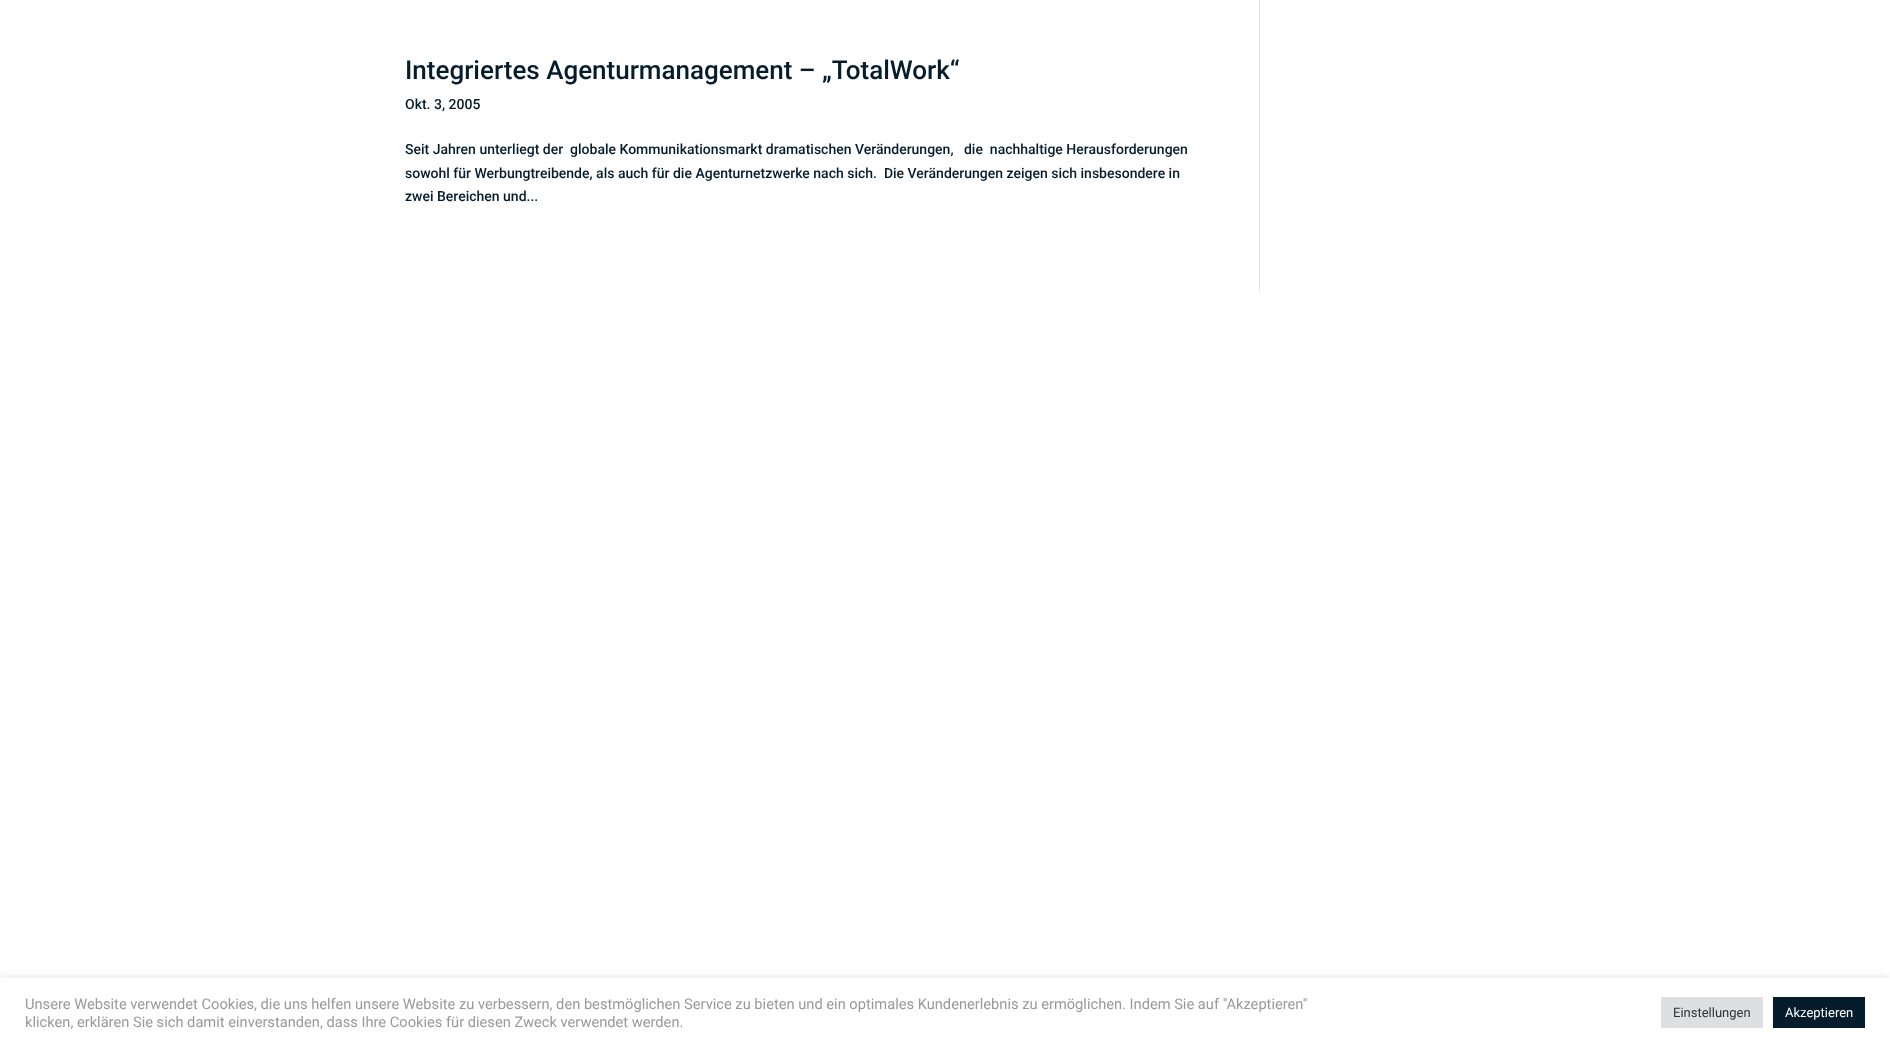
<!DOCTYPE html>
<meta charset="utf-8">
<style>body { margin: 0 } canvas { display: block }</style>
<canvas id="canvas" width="1890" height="1047"></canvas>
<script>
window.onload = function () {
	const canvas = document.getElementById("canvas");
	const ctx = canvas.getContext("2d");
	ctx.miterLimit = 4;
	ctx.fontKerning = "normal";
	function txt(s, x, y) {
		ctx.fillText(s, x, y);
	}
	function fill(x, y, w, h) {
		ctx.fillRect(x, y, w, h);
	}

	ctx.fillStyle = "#FFFFFF";
	fill(0, 0, 1890, 1047);
	ctx.fillStyle = "#E2E2E2";
	fill(1259, 0, 1, 292);
	ctx.save();
	ctx.beginPath();
	ctx.rect(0, 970, 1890, 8);
	ctx.clip();
	ctx.fillStyle = "rgba(172, 171, 171, 0.3)";
	ctx.filter = "blur(5px)";
	ctx.beginPath();
	ctx.rect(0, 977, 1890, 69);
	ctx.fill();
	ctx.filter = "none";
	ctx.restore();
	ctx.fillStyle = "#DEDFE0";
	fill(1661, 997, 102, 31);
	ctx.fillStyle = "#051C2C";
	fill(1773, 997, 92, 31);
	ctx.font = "500 26px Roboto";
	txt("Integriertes Agenturmanagement – „TotalWork“", 405, 79);
	ctx.font = "500 14px Roboto";
	txt("Okt. 3, 2005", 405, 109);
	txt("Seit Jahren unterliegt der  globale Kommunikationsmarkt dramatischen Veränderungen,   die  nachhaltige Herausforderungen", 405, 154);
	txt("sowohl für Werbungtreibende, als auch für die Agenturnetzwerke nach sich.  Die Veränderungen zeigen sich insbesondere in", 405, 178);
	txt("zwei Bereichen und...", 405, 201);
	ctx.font = "14.67px Roboto";
	ctx.fillStyle = "#999999";
	txt("Unsere Website verwendet Cookies, die uns helfen unsere Website zu verbessern, den bestmöglichen Service zu bieten und ein optimales Kundenerlebnis zu ermöglichen. Indem Sie auf \"Akzeptieren\"", 25, 1009);
	txt("klicken, erklären Sie sich damit einverstanden, dass Ihre Cookies für diesen Zweck verwendet werden.", 25, 1027);
	ctx.font = "13px Roboto";
	ctx.fillStyle = "#333333";
	txt("Einstellungen", 1673, 1017);
	ctx.fillStyle = "#FFFFFF";
	txt("Akzeptieren", 1785, 1017);
};
</script>
